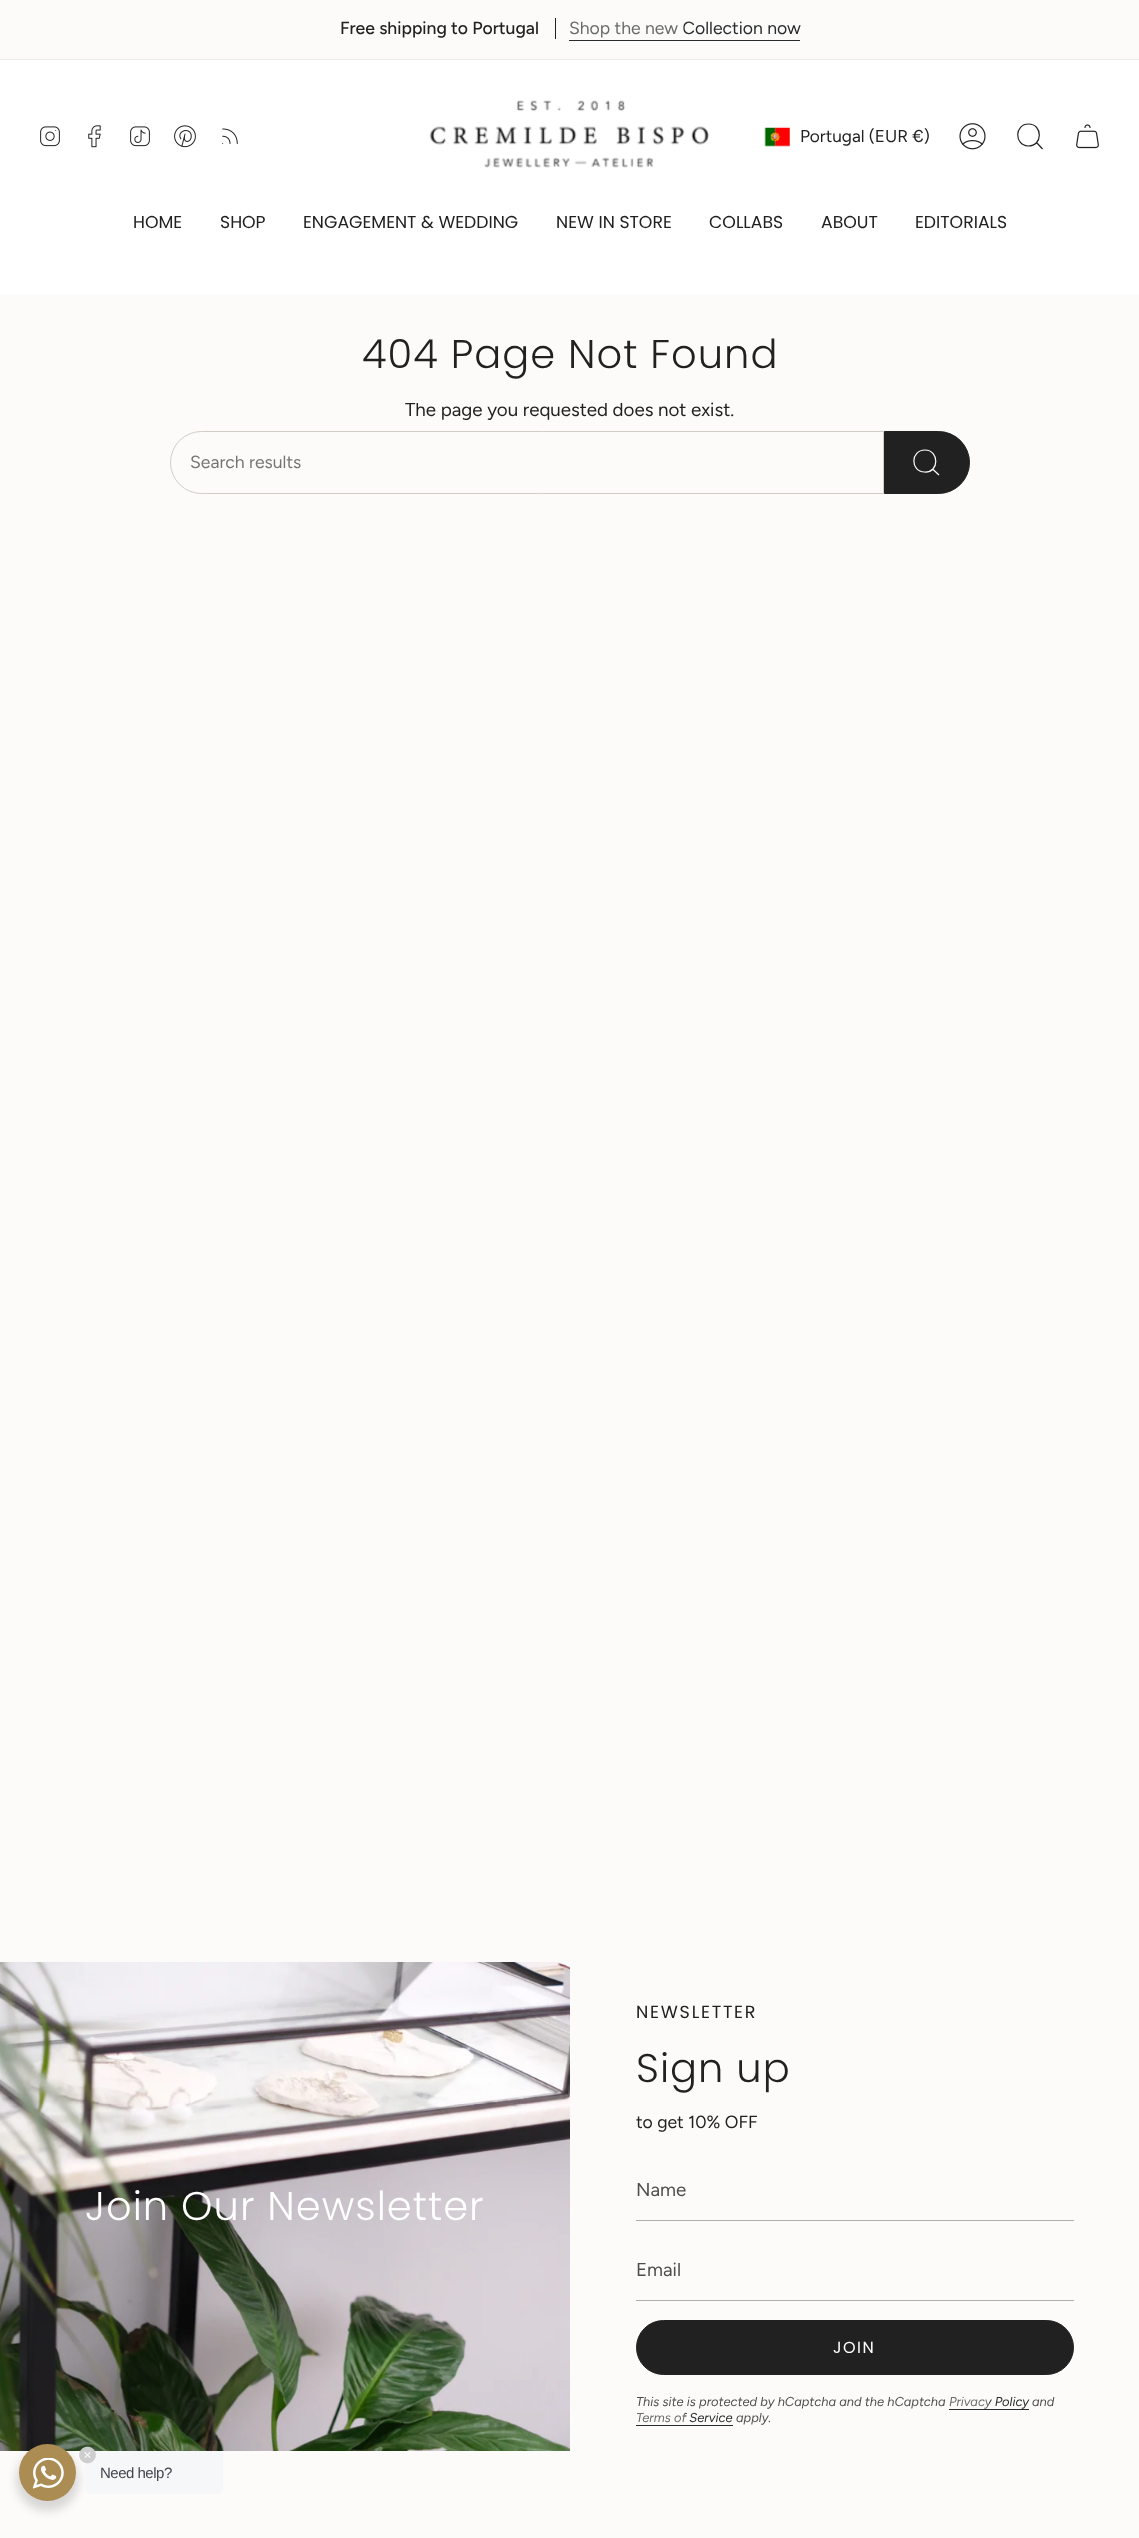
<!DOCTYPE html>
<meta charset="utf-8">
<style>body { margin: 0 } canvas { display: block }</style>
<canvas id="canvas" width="1139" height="2538"></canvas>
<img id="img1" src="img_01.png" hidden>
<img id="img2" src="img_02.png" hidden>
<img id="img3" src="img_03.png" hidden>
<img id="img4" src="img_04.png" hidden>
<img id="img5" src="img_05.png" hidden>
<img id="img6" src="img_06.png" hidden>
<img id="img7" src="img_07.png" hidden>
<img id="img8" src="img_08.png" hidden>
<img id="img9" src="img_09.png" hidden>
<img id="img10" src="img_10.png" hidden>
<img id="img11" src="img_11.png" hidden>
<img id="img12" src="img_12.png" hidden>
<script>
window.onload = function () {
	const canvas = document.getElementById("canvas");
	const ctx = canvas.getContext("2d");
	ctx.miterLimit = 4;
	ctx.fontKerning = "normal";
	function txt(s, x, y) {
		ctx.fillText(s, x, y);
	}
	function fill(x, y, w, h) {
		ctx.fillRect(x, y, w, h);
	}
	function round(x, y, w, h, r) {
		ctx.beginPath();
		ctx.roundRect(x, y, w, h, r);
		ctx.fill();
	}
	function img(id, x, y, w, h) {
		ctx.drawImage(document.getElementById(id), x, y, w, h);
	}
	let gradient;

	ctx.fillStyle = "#FCFBF9";
	fill(0, 0, 1139, 2538);
	ctx.fillStyle = "#EAEAEA";
	fill(0, 59, 1139, 1);
	ctx.fillStyle = "#212121";
	fill(555, 18, 1, 21);
	ctx.fillStyle = "#282C2E";
	fill(569, 40, 231, 1);
	ctx.fillStyle = "#FFFFFF";
	fill(0, 60, 1139, 234);
	img("img1", 40, 126, 20, 21);
	img("img2", 88, 125, 13, 23);
	img("img3", 130, 126, 20, 21);
	img("img4", 174, 125, 22, 23);
	img("img5", 222, 128, 16, 16);
	img("img6", 429, 100, 281, 68);
	img("img7", 764, 127, 26, 20);
	img("img8", 959, 123, 27, 27);
	ctx.beginPath();
	ctx.moveTo(1028.5, 124);
	ctx.bezierCurveTo(1043, 124, 1043, 146.5, 1028, 146);
	ctx.bezierCurveTo(1014, 145, 1014.5, 124, 1028.5, 124);
	ctx.closePath();
	ctx.moveTo(1036.5, 142.5);
	ctx.lineTo(1042.5, 149);
	ctx.strokeStyle = "#212121";
	ctx.lineWidth = 1.2;
	ctx.stroke();
	img("img9", 1076, 124, 23, 25);
	ctx.beginPath();
	ctx.roundRect(170.5, 431.5, 713, 62, [31, 0, 0, 31]);
	ctx.strokeStyle = "#D1CDC4";
	ctx.lineWidth = 1;
	ctx.stroke();
	ctx.fillStyle = "#212121";
	ctx.beginPath();
	ctx.roundRect(884.5, 431.5, 85, 62, [0, 31, 31, 0]);
	ctx.fill();
	ctx.strokeStyle = "#212121";
	ctx.stroke();
	ctx.beginPath();
	ctx.moveTo(925, 450);
	ctx.bezierCurveTo(939.5, 450, 939.5, 473, 924.5, 472);
	ctx.bezierCurveTo(910, 471.5, 910.5, 450, 925, 450);
	ctx.closePath();
	ctx.moveTo(932.5, 469);
	ctx.lineTo(939, 475);
	ctx.strokeStyle = "#FFFFFF";
	ctx.lineWidth = 1.2;
	ctx.stroke();
	img("img10", 0, 1962, 570, 489);
	ctx.fillStyle = "#AFAFAD";
	fill(636, 2220, 438, 1);
	fill(636, 2300, 438, 1);
	ctx.fillStyle = "#212121";
	ctx.beginPath();
	ctx.roundRect(636.5, 2320.5, 437, 54, 27);
	ctx.fill();
	ctx.strokeStyle = "#212121";
	ctx.lineWidth = 1;
	ctx.stroke();
	ctx.fillStyle = "#282C2E";
	fill(949, 2409, 80, 1);
	fill(636, 2425, 97, 1);
	ctx.fillStyle = "rgba(0, 0, 0, 0.14)";
	ctx.filter = "blur(5px)";
	ctx.beginPath();
	ctx.roundRect(16, 2449, 63, 62, 31);
	ctx.fill();
	ctx.filter = "none";
	ctx.fillStyle = "#AB8C52";
	ctx.beginPath();
	ctx.arc(47.5, 2472.5, 28.5, 0, Math.PI * 2);
	ctx.fill();
	img("img11", 33, 2458, 31, 31);
	ctx.fillStyle = "#F5F7F9";
	round(85, 2451, 138, 43, 5);
	img("img12", 79, 2446, 17, 18);
	ctx.font = "500 17.6px Figtree";
	ctx.fillStyle = "#212121";
	txt("Free shipping to Portugal", 340, 34);
	ctx.font = "17.6px Figtree";
	gradient = ctx.createLinearGradient(569, 30, 800, 30);
	gradient.addColorStop(0, "#686A6B");
	gradient.addColorStop(0.5, "#686A6B");
	gradient.addColorStop(0.5, "#282C2E");
	gradient.addColorStop(1, "#282C2E");
	ctx.fillStyle = gradient;
	txt("Shop the new Collection now", 569, 34);
	ctx.font = "17.25px Figtree";
	ctx.fillStyle = "#212121";
	txt("Portugal (EUR €)", 800, 142);
	ctx.font = "17.25px Poppins";
	txt("HOME", 133, 228);
	txt("SHOP", 220, 228);
	txt("ENGAGEMENT & WEDDING", 303, 228);
	txt("NEW IN STORE", 556, 228);
	txt("COLLABS", 709, 228);
	txt("ABOUT", 821, 228);
	txt("EDITORIALS", 915, 228);
	ctx.letterSpacing = "1px";
	ctx.font = "300 40px Poppins";
	txt("404 Page Not Found", 362, 368);
	ctx.letterSpacing = "0px";
	ctx.font = "18.75px Figtree";
	txt("The page you requested does not exist.", 405, 416);
	ctx.font = "17.6px Figtree";
	ctx.fillStyle = "#757575";
	txt("Search results", 190, 468);
	ctx.letterSpacing = "1px";
	ctx.font = "300 40px Poppins";
	ctx.fillStyle = "#FFFFFF";
	txt("Join Our Newsletter", 85, 2220);
	ctx.letterSpacing = "1.75px";
	ctx.font = "17.5px Poppins";
	ctx.fillStyle = "#212121";
	txt("NEWSLETTER", 636, 2018);
	ctx.letterSpacing = "1px";
	ctx.font = "300 40px Poppins";
	txt("Sign up", 636, 2082);
	ctx.letterSpacing = "0px";
	ctx.font = "17.6px Figtree";
	txt("to get 10% OFF", 636, 2128);
	ctx.font = "18.75px Figtree";
	ctx.fillStyle = "#4D4D4C";
	txt("Name", 636, 2196);
	txt("Email", 636, 2276);
	ctx.letterSpacing = "1.5px";
	ctx.font = "16px Poppins";
	ctx.fillStyle = "#FFFFFF";
	txt("JOIN", 833, 2353);
	ctx.letterSpacing = "0px";
	ctx.font = "italic 12.9px Figtree";
	ctx.fillStyle = "#4D4D4C";
	txt("This site is protected by hCaptcha and the hCaptcha", 636, 2406);
	gradient = ctx.createLinearGradient(949, 2402, 1029, 2402);
	gradient.addColorStop(0, "#686A6B");
	gradient.addColorStop(0.5, "#686A6B");
	gradient.addColorStop(0.5, "#282C2E");
	gradient.addColorStop(1, "#282C2E");
	ctx.fillStyle = gradient;
	txt("Privacy Policy", 949, 2406);
	ctx.fillStyle = "#4D4D4C";
	txt("and", 1032, 2406);
	gradient = ctx.createLinearGradient(636, 2418, 733, 2418);
	gradient.addColorStop(0, "#686A6B");
	gradient.addColorStop(0.5, "#686A6B");
	gradient.addColorStop(0.5, "#282C2E");
	gradient.addColorStop(1, "#282C2E");
	ctx.fillStyle = gradient;
	txt("Terms of Service", 636, 2422);
	ctx.fillStyle = "#4D4D4C";
	txt("apply.", 736, 2422);
	ctx.letterSpacing = "-0.5px";
	ctx.font = "15px Liberation Sans";
	ctx.fillStyle = "#43474E";
	txt("Need help?", 100, 2478);
};
</script>
